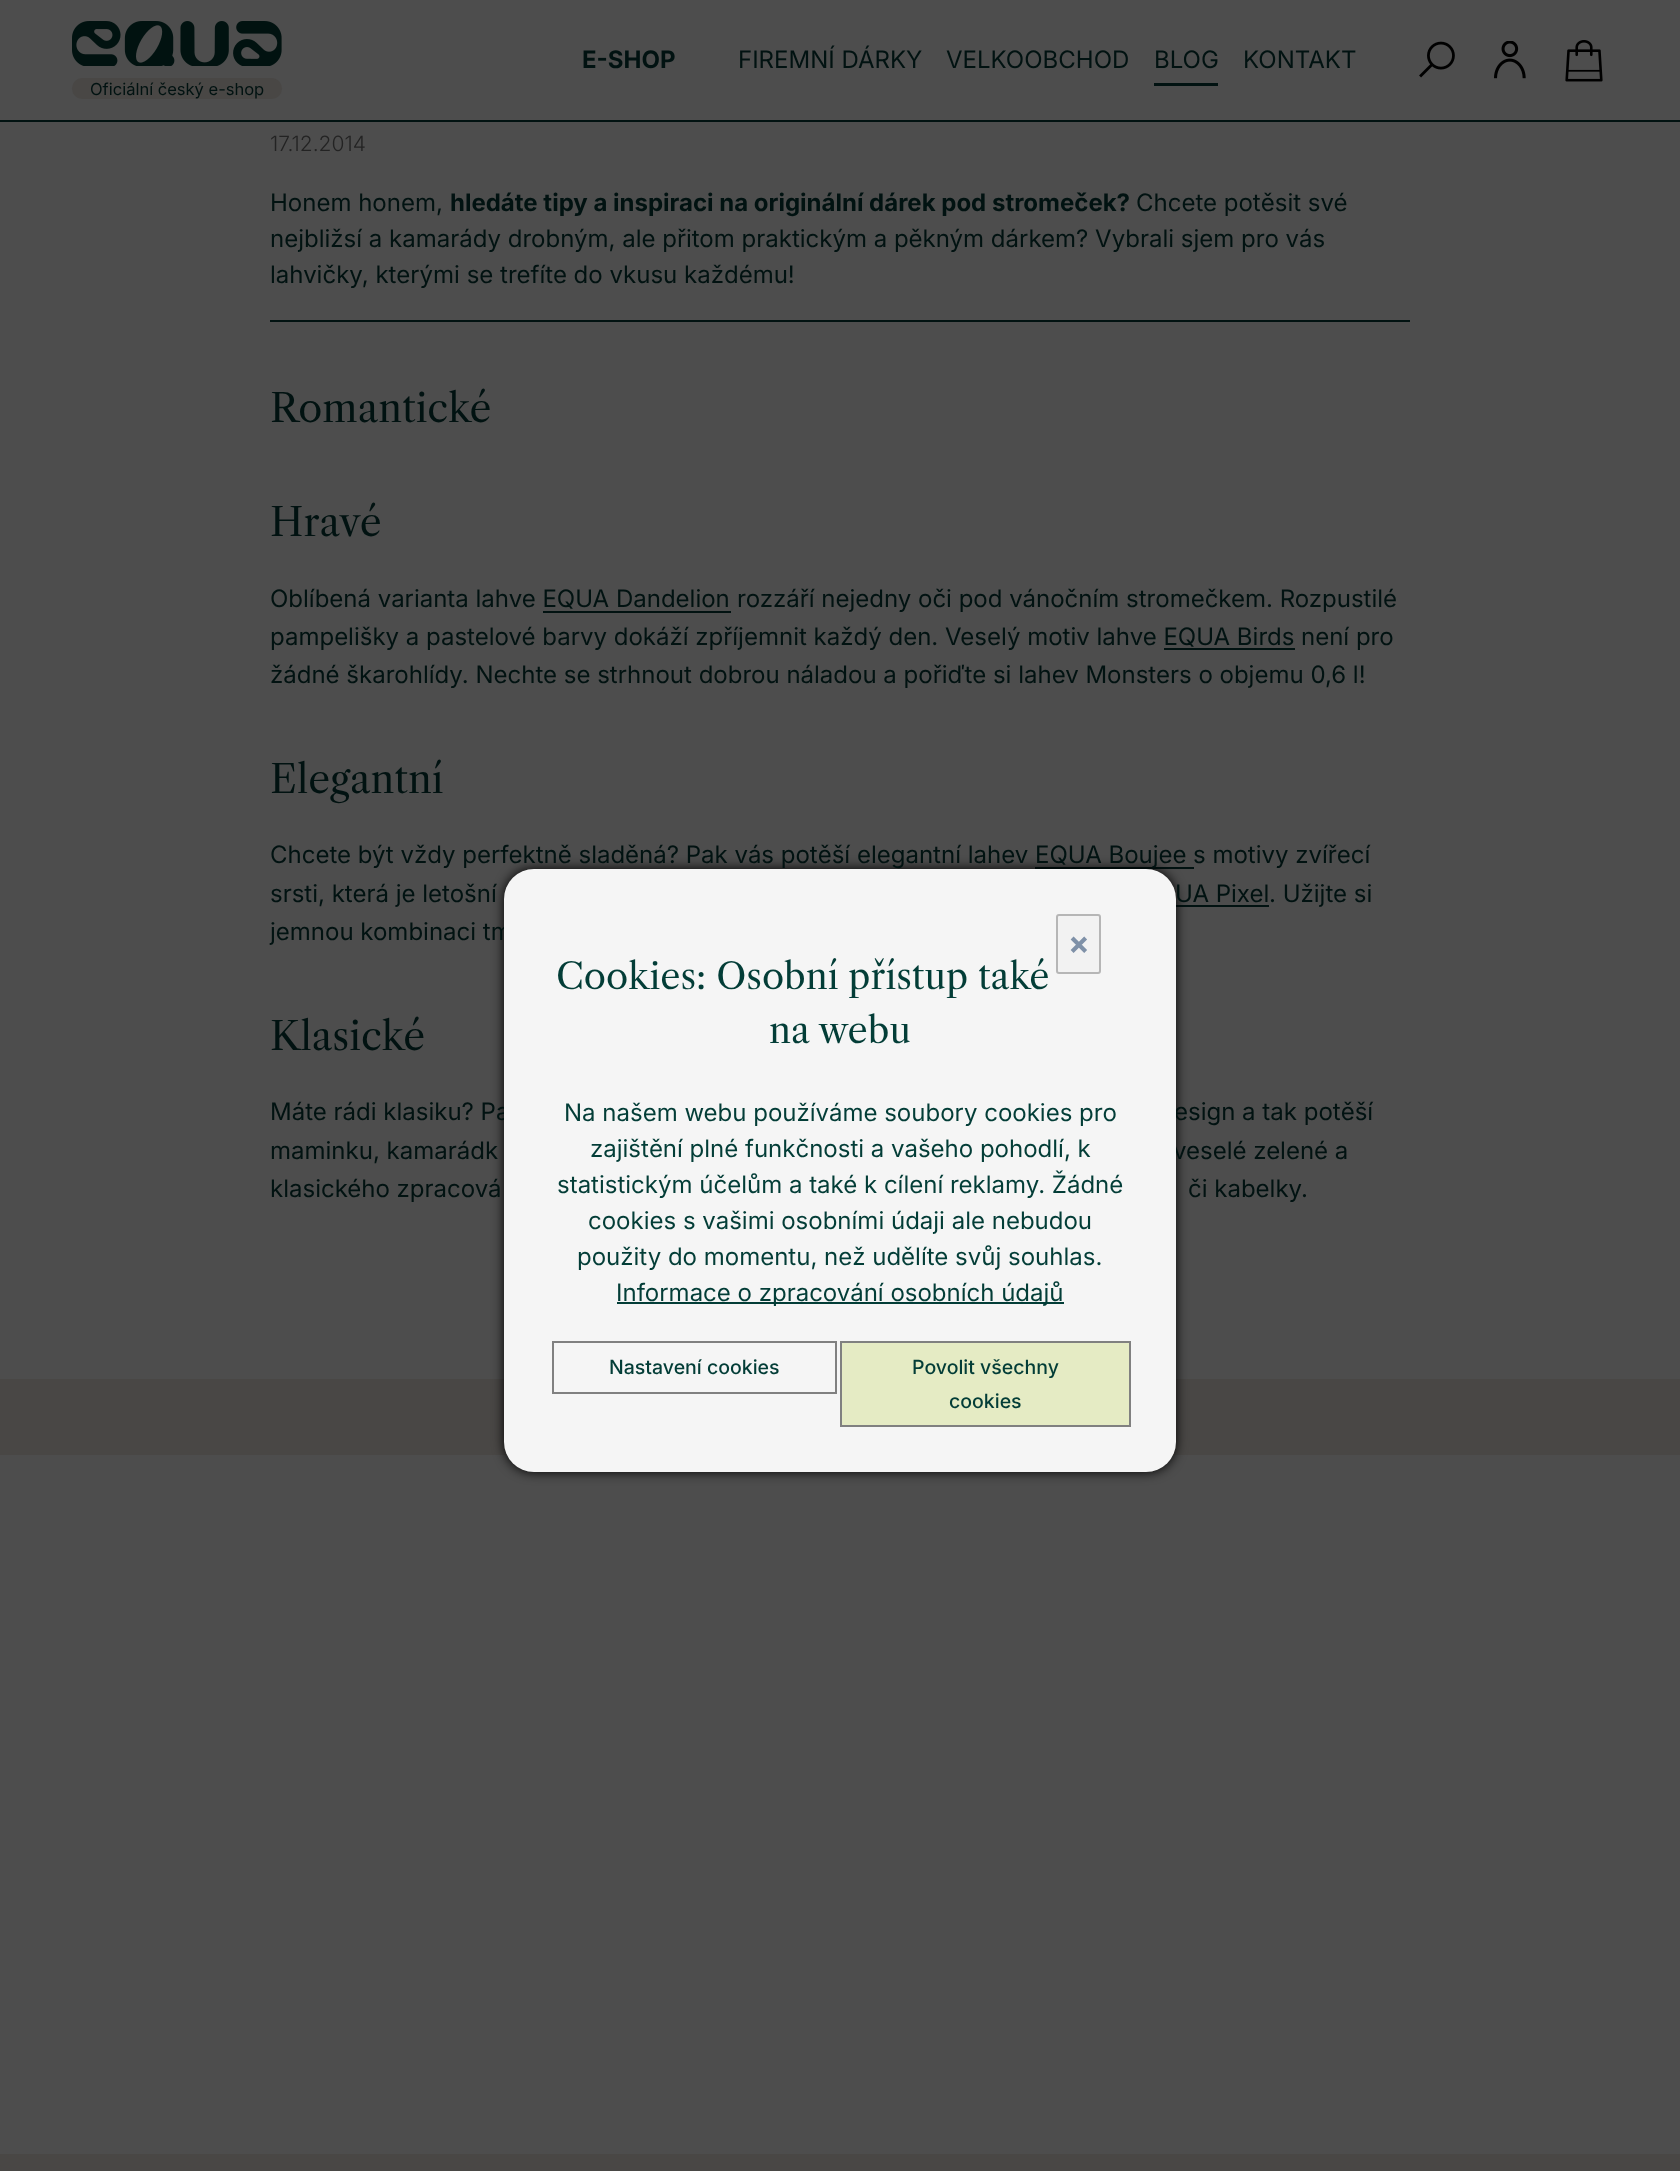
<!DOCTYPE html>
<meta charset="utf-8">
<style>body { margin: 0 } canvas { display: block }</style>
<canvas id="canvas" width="1680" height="2171"></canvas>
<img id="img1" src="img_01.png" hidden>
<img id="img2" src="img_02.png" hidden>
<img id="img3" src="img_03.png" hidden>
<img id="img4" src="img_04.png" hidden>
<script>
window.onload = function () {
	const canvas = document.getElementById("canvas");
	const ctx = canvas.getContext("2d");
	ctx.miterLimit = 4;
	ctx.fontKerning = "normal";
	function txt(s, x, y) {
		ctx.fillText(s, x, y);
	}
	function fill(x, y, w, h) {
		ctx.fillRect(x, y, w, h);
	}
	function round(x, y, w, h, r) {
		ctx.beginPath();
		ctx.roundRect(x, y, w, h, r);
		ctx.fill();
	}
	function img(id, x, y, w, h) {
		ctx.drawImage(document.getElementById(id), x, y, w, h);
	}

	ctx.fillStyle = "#4D4D4D";
	fill(0, 0, 1680, 2171);
	ctx.fillStyle = "#011211";
	fill(0, 120, 1680, 2);
	fill(1154, 83, 64, 3);
	img("img1", 1565, 40, 38, 42);
	img("img2", 72, 21, 210, 45);
	ctx.fillStyle = "#494745";
	round(72, 78, 210, 21, 10.5);
	img("img3", 1419, 41, 36, 37);
	img("img4", 1494, 41, 32, 38);
	ctx.fillStyle = "#011211";
	fill(270, 320, 1140, 2);
	fill(543, 611, 188, 2);
	fill(1164, 648, 131, 2);
	fill(1035, 867, 159, 2);
	fill(1176, 905, 93, 2);
	ctx.fillStyle = "#494745";
	fill(0, 1379, 1680, 792);
	ctx.fillStyle = "#4D4D4D";
	fill(0, 1455, 560, 350);
	fill(560, 1472, 561, 333);
	fill(1121, 1455, 559, 350);
	fill(0, 1805, 1680, 349);
	ctx.fillStyle = "#000000";
	ctx.filter = "blur(6px)";
	ctx.beginPath();
	ctx.roundRect(504, 869, 672, 603, 30);
	ctx.fill();
	ctx.filter = "none";
	ctx.font = "bold 24px Inter";
	ctx.fillStyle = "#011211";
	txt("E-SHOP", 582, 68);
	ctx.font = "24px Inter";
	txt("FIREMNÍ DÁRKY", 738, 68);
	txt("VELKOOBCHOD", 946, 68);
	txt("BLOG", 1154, 68);
	txt("KONTAKT", 1243, 68);
	ctx.font = "16.5px Inter";
	txt("Oficiální český e-shop", 90, 95);
	ctx.font = "300 21px Inter";
	ctx.fillStyle = "#232323";
	txt("17.12.2014", 270, 151);
	ctx.font = "24px Inter";
	ctx.fillStyle = "#011211";
	txt("Honem honem,", 270, 211);
	ctx.font = "bold 24px Inter";
	txt("hledáte tipy a inspiraci na originální dárek pod stromeček?", 450, 211);
	ctx.font = "24px Inter";
	txt("Chcete potěsit své", 1136, 211);
	txt("nejbližsí a kamarády drobným, ale přitom praktickým a pěkným dárkem? Vybrali sjem pro vás", 270, 247);
	txt("lahvičky, kterými se trefíte do vkusu každému!", 270, 283);
	ctx.font = "39px Libre Caslon Text";
	txt("Romantické", 270, 422);
	txt("Hravé", 270, 536);
	ctx.font = "24px Inter";
	txt("Oblíbená varianta lahve EQUA Dandelion", 270, 607);
	txt("rozzáří nejedny oči pod vánočním stromečkem. Rozpustilé", 737, 607);
	txt("pampelišky a pastelové barvy dokáží zpříjemnit každý den. Veselý motiv lahve EQUA Birds", 270, 645);
	txt("není pro", 1301, 645);
	txt("žádné škarohlídy. Nechte se strhnout dobrou náladou a pořiďte si lahev Monsters o objemu 0,6 l!", 270, 683);
	ctx.font = "39px Libre Caslon Text";
	txt("Elegantní", 270, 793);
	ctx.font = "24px Inter";
	txt("Chcete být vždy perfektně sladěná? Pak vás potěší elegantní lahev", 270, 863);
	txt("EQUA Boujee", 1035, 863);
	txt("s motivy zvířecí", 1193, 863);
	txt("srsti, která je letošní", 270, 902);
	txt("UA Pixel", 1175, 902);
	txt(". Užijte si", 1269, 902);
	txt("jemnou kombinaci tm", 270, 940);
	ctx.font = "39px Libre Caslon Text";
	txt("Klasické", 270, 1050);
	ctx.font = "24px Inter";
	txt("Máte rádi klasiku? Pa", 270, 1120);
	txt("esign a tak potěší", 1174, 1120);
	txt("maminku, kamarádk", 270, 1159);
	txt("veselé zelené a", 1173, 1159);
	txt("klasického zpracová", 270, 1197);
	txt("či kabelky.", 1188, 1197);
	ctx.fillStyle = "#F5F5F5";
	round(504, 869, 672, 603, 30);
	ctx.fillStyle = "#F2F2F2";
	ctx.beginPath();
	ctx.roundRect(1057, 915, 43, 58, 2);
	ctx.fill();
	ctx.strokeStyle = "#B6B6B6";
	ctx.lineWidth = 2;
	ctx.stroke();
	ctx.font = "bold 32px Inter";
	ctx.fillStyle = "#7F91A8";
	txt("×", 1068, 954);
	ctx.font = "36px Libre Caslon Text";
	ctx.fillStyle = "#033D37";
	txt("Cookies: Osobní přístup také", 556, 989);
	txt("na webu", 769, 1043);
	ctx.font = "24px Inter";
	txt("Na našem webu používáme soubory cookies pro", 564, 1121);
	txt("zajištění plné funkčnosti a vašeho pohodlí, k", 590, 1157);
	txt("statistickým účelům a také k cílení reklamy. Žádné", 557, 1193);
	txt("cookies s vašimi osobními údaji ale nebudou", 588, 1229);
	txt("použity do momentu, než udělíte svůj souhlas.", 577, 1265);
	fill(617, 1302, 447, 2);
	txt("Informace o zpracování osobních údajů", 616, 1301);
	ctx.strokeStyle = "#808080";
	ctx.strokeRect(553, 1342, 283, 51);
	ctx.font = "500 19.5px Inter";
	txt("Nastavení cookies", 609, 1374);
	ctx.fillStyle = "#E5EBC4";
	ctx.beginPath();
	ctx.rect(841, 1342, 289, 84);
	ctx.fill();
	ctx.stroke();
	ctx.fillStyle = "#033D37";
	txt("Povolit všechny", 912, 1374);
	txt("cookies", 949, 1408);
};
</script>
